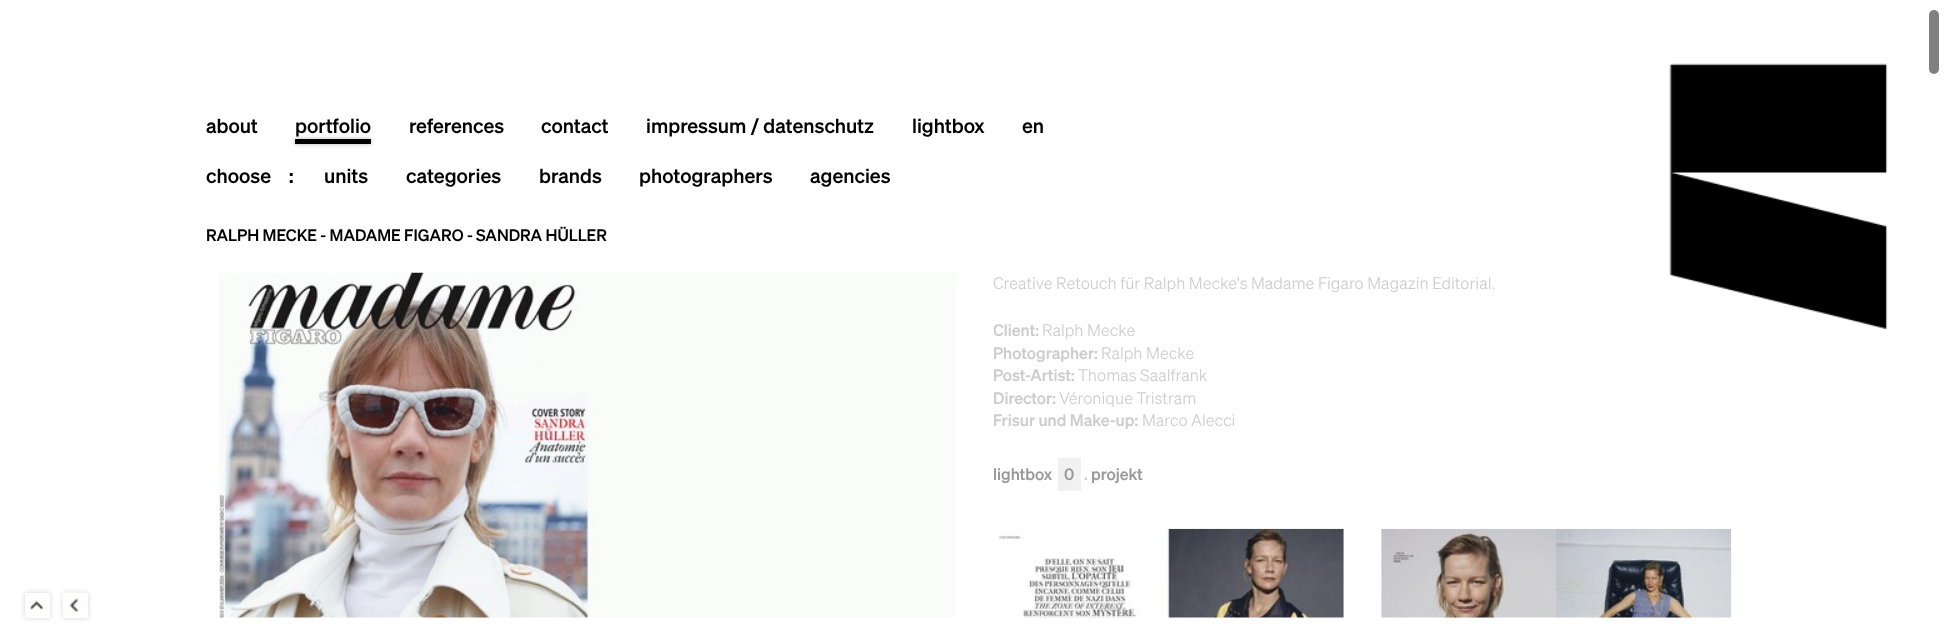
<!DOCTYPE html>
<meta charset="utf-8">
<style>body { margin: 0 } canvas { display: block }</style>
<canvas id="canvas" width="1948" height="642"></canvas>
<img id="img1" src="img_01.png" hidden>
<img id="img2" src="img_02.png" hidden>
<img id="img3" src="img_03.png" hidden>
<img id="img4" src="img_04.png" hidden>
<img id="img5" src="img_05.png" hidden>
<img id="img6" src="img_06.png" hidden>
<script>
window.onload = function () {
	const canvas = document.getElementById("canvas");
	const ctx = canvas.getContext("2d");
	ctx.miterLimit = 4;
	ctx.fontKerning = "normal";
	function txt(s, x, y) {
		ctx.fillText(s, x, y);
	}
	function fill(x, y, w, h) {
		ctx.fillRect(x, y, w, h);
	}
	function round(x, y, w, h, r) {
		ctx.beginPath();
		ctx.roundRect(x, y, w, h, r);
		ctx.fill();
	}
	function img(id, x, y, w, h) {
		ctx.drawImage(document.getElementById(id), x, y, w, h);
	}

	ctx.fillStyle = "#FFFFFF";
	fill(0, 0, 1948, 642);
	ctx.fillStyle = "#808080";
	round(1929, 10, 10, 64, 5);
	ctx.fillStyle = "rgba(0, 0, 0, 0.3)";
	ctx.filter = "blur(2px)";
	ctx.beginPath();
	ctx.rect(295, 139, 76, 5);
	ctx.fill();
	ctx.filter = "none";
	ctx.fillStyle = "#000000";
	fill(295, 139, 76, 5);
	img("img1", 1669, 63, 219, 266);
	img("img2", 219, 272, 737, 346);
	ctx.fillStyle = "#F1F1F1";
	fill(1058, 458, 23, 33);
	img("img3", 998, 528, 346, 90);
	img("img4", 1381, 528, 351, 90);
	ctx.save();
	ctx.beginPath();
	ctx.moveTo(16, 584);
	ctx.lineTo(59, 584);
	ctx.lineTo(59, 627);
	ctx.lineTo(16, 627);
	ctx.closePath();
	ctx.moveTo(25, 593);
	ctx.lineTo(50, 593);
	ctx.lineTo(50, 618);
	ctx.lineTo(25, 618);
	ctx.closePath();
	ctx.clip("evenodd");
	ctx.fillStyle = "rgba(30, 30, 30, 0.2)";
	ctx.filter = "blur(2.5px)";
	ctx.beginPath();
	ctx.rect(25, 593, 25, 25);
	ctx.fill();
	ctx.filter = "none";
	ctx.restore();
	img("img5", 27, 600, 21, 18);
	ctx.save();
	ctx.beginPath();
	ctx.moveTo(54, 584);
	ctx.lineTo(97, 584);
	ctx.lineTo(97, 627);
	ctx.lineTo(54, 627);
	ctx.closePath();
	ctx.moveTo(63, 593);
	ctx.lineTo(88, 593);
	ctx.lineTo(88, 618);
	ctx.lineTo(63, 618);
	ctx.closePath();
	ctx.clip("evenodd");
	ctx.fillStyle = "rgba(30, 30, 30, 0.2)";
	ctx.filter = "blur(2.5px)";
	ctx.beginPath();
	ctx.rect(63, 593, 25, 25);
	ctx.fill();
	ctx.filter = "none";
	ctx.restore();
	img("img6", 62, 592, 26, 26);
	ctx.font = "500 20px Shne";
	ctx.fillStyle = "#000000";
	txt("about", 206, 133);
	txt("portfolio", 295, 133);
	txt("references", 409, 133);
	txt("contact", 541, 133);
	txt("impressum / datenschutz", 646, 133);
	txt("lightbox", 912, 133);
	txt("en", 1022, 133);
	txt("choose", 206, 183);
	txt(":", 289, 183);
	txt("units", 324, 183);
	txt("categories", 406, 183);
	txt("brands", 539, 183);
	txt("photographers", 639, 183);
	txt("agencies", 810, 183);
	ctx.font = "500 16.25px Shne";
	txt("RALPH MECKE - MADAME FIGARO - SANDRA HÜLLER", 206, 241);
	ctx.font = "300 16.25px Shne";
	ctx.fillStyle = "#CCCCCC";
	txt("Creative Retouch für Ralph Mecke's Madame Figaro Magazin Editorial.", 993, 289);
	ctx.save();
	ctx.beginPath();
	ctx.rect(994, 273, 737, 218);
	ctx.clip();
	ctx.font = "500 16.25px Shne";
	txt("Client:", 993, 336);
	ctx.restore();
	txt("Ralph Mecke", 1042, 336);
	ctx.font = "500 16.25px Shne";
	txt("Photographer:", 993, 359);
	ctx.font = "300 16.25px Shne";
	txt("Ralph Mecke", 1101, 359);
	ctx.font = "500 16.25px Shne";
	txt("Post-Artist:", 993, 381);
	ctx.font = "300 16.25px Shne";
	txt("Thomas Saalfrank", 1078, 381);
	ctx.font = "500 16.25px Shne";
	txt("Director:", 993, 404);
	ctx.font = "300 16.25px Shne";
	txt("Véronique Tristram", 1059, 404);
	ctx.font = "500 16.25px Shne";
	txt("Frisur und Make-up:", 993, 426);
	ctx.font = "300 16.25px Shne";
	txt("Marco Alecci", 1142, 426);
	ctx.font = "500 16.25px Shne";
	ctx.fillStyle = "#999999";
	txt("lightbox", 993, 480);
	txt("0", 1064, 480);
	ctx.fillStyle = "#CCCCCC";
	txt(".", 1084, 480);
	ctx.fillStyle = "#999999";
	txt("projekt", 1091, 480);
};
</script>
